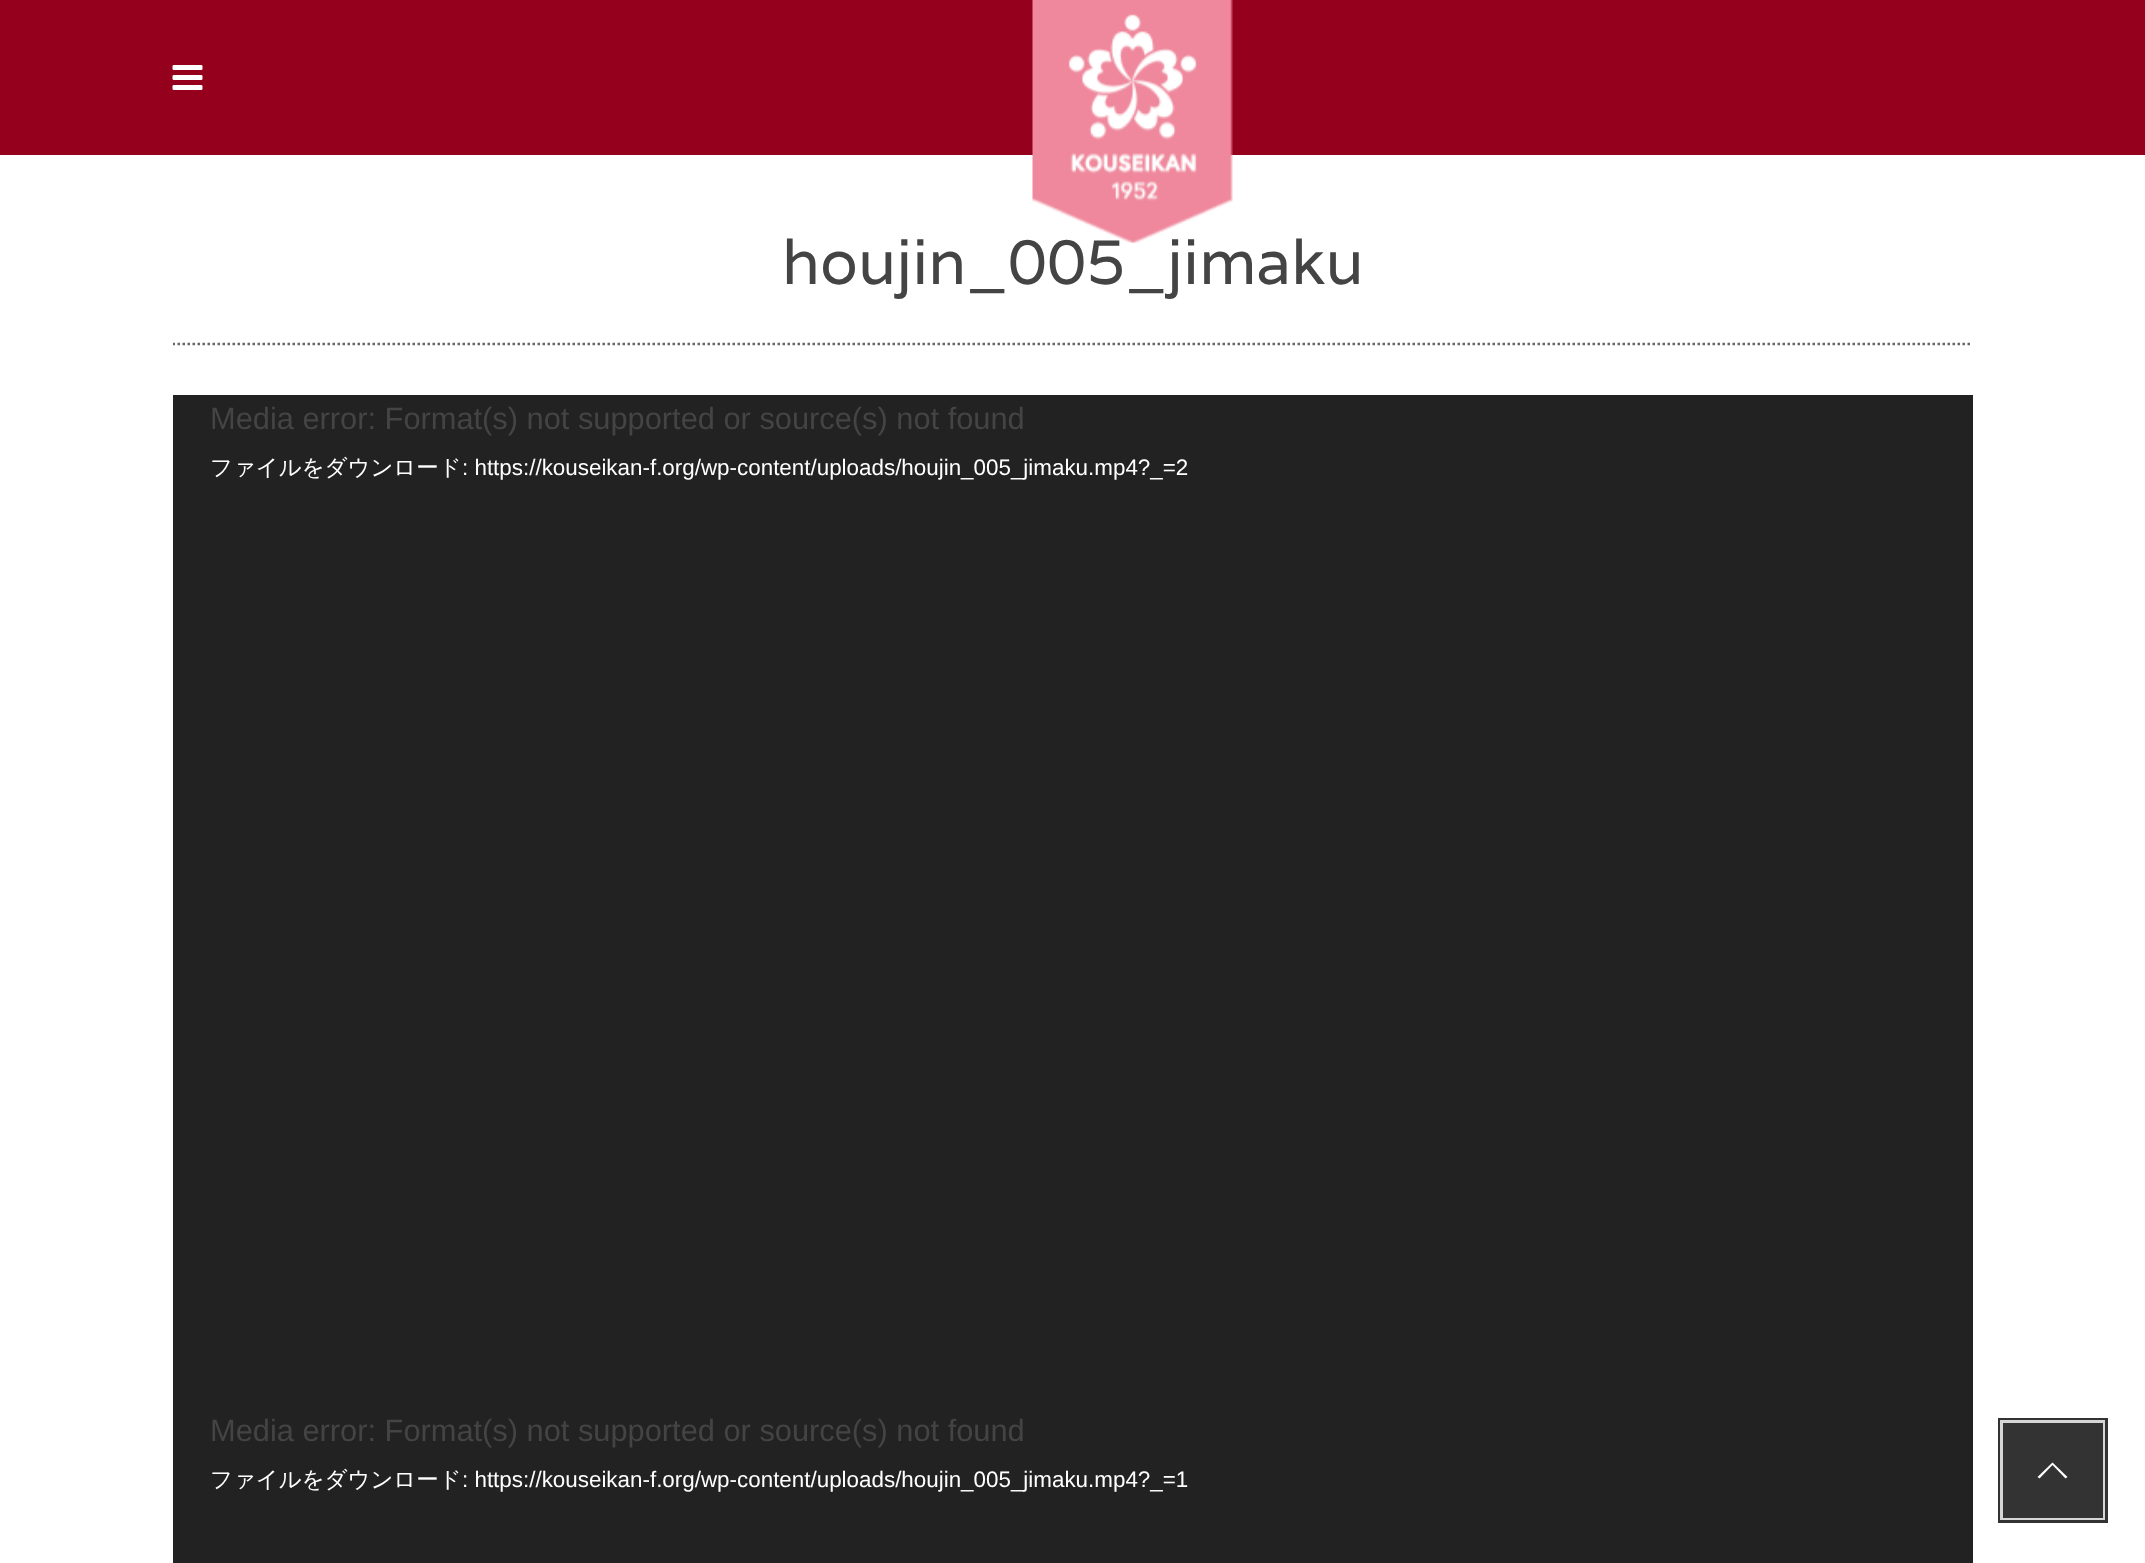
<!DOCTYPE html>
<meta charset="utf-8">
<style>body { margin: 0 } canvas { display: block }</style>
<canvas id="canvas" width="2145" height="1563"></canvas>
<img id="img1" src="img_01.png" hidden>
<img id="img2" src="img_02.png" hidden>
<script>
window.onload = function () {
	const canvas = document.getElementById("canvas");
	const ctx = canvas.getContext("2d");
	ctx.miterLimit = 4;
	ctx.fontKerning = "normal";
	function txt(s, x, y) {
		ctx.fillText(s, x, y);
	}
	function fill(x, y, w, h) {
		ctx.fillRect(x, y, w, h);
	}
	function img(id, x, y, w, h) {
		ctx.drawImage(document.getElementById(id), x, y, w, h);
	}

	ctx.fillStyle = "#FFFFFF";
	fill(0, 0, 2145, 1563);
	ctx.fillStyle = "#95001D";
	fill(0, 0, 2145, 155);
	img("img1", 172, 65, 31, 25);
	ctx.save();
	ctx.beginPath();
	ctx.rect(173, 205, 1800, 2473);
	ctx.clip();
	ctx.beginPath();
	ctx.moveTo(172.5, 344);
	ctx.lineTo(1972.5, 344);
	ctx.strokeStyle = "#666666";
	ctx.lineWidth = 2.5;
	ctx.setLineDash([2.5, 2.5]);
	ctx.stroke();
	ctx.restore();
	ctx.fillStyle = "#222222";
	fill(173, 395, 1800, 1168);
	ctx.strokeStyle = "#333333";
	ctx.lineWidth = 5;
	ctx.strokeRect(2000.5, 1420.5, 105, 100);
	ctx.strokeStyle = "rgba(255, 255, 255, 0.8)";
	ctx.lineWidth = 3;
	ctx.strokeRect(2001.5, 1421.5, 102, 97);
	ctx.fillStyle = "#333333";
	fill(2003, 1423, 100, 95);
	ctx.fillStyle = "#FFFFFF";
	ctx.beginPath();
	ctx.moveTo(2067.5, 1477);
	ctx.lineTo(2065.5, 1478.5);
	ctx.lineTo(2052.5, 1465);
	ctx.lineTo(2039.5, 1478.5);
	ctx.lineTo(2037.5, 1477);
	ctx.lineTo(2052.5, 1462.5);
	ctx.closePath();
	ctx.fill();
	ctx.font = "62.5px Varela";
	ctx.fillStyle = "#444444";
	txt("houjin_005_jimaku", 782, 284);
	img("img2", 1032, 0, 201, 243);
	ctx.font = "30.8px Liberation Sans";
	txt("Media error: Format(s) not supported or source(s) not found", 210, 429);
	ctx.font = "500 22.4px WenQuanYi Zen Hei";
	ctx.fillStyle = "#FFFFFF";
	txt("ファイルをダウンロード", 210, 475);
	ctx.font = "22.4px Liberation Sans";
	txt(": https://kouseikan-f.org/wp-content/uploads/houjin_005_jimaku.mp4?_=2", 462, 475);
	ctx.font = "30.8px Liberation Sans";
	ctx.fillStyle = "#444444";
	txt("Media error: Format(s) not supported or source(s) not found", 210, 1441);
	ctx.font = "500 22.4px WenQuanYi Zen Hei";
	ctx.fillStyle = "#FFFFFF";
	txt("ファイルをダウンロード", 210, 1487);
	ctx.font = "22.4px Liberation Sans";
	txt(": https://kouseikan-f.org/wp-content/uploads/houjin_005_jimaku.mp4?_=1", 462, 1487);
};
</script>
